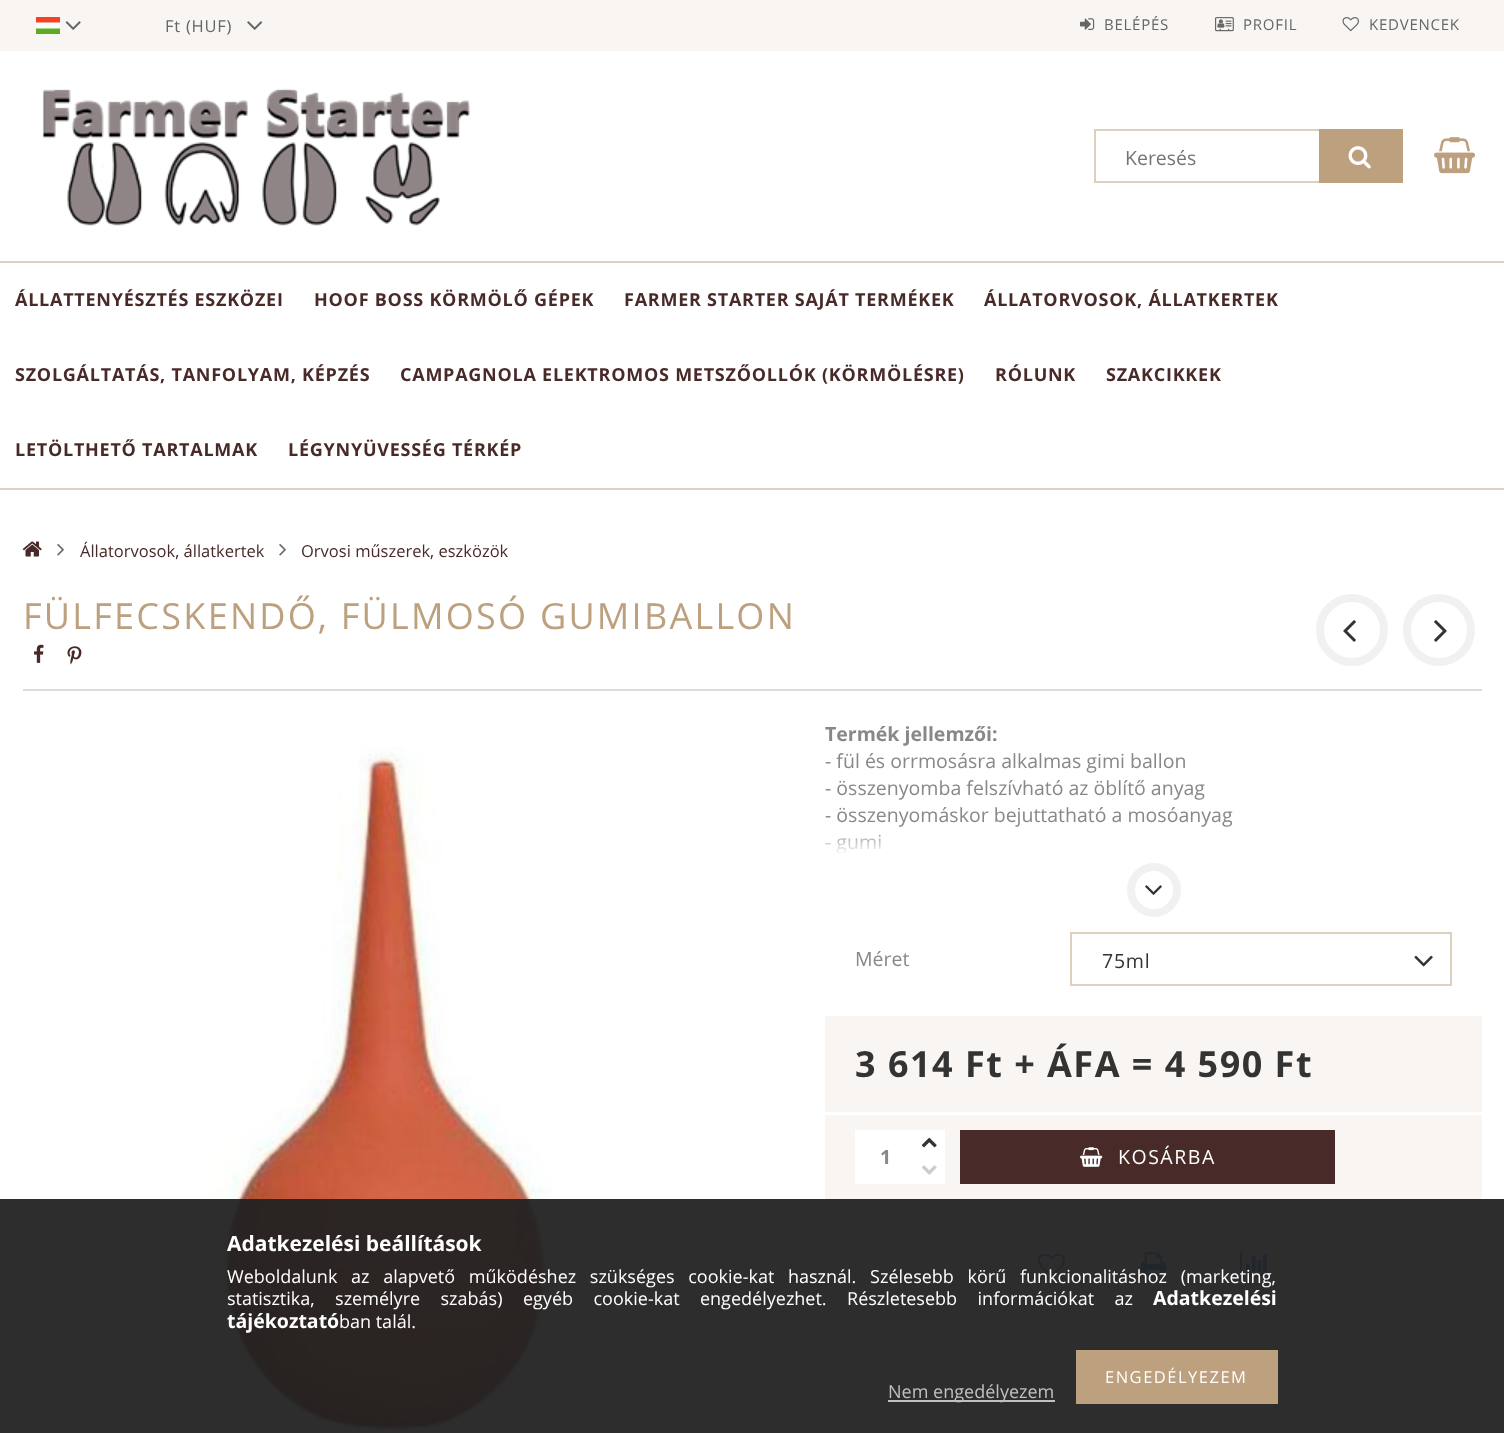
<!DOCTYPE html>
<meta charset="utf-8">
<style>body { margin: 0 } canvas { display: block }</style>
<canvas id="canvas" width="1504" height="1433"></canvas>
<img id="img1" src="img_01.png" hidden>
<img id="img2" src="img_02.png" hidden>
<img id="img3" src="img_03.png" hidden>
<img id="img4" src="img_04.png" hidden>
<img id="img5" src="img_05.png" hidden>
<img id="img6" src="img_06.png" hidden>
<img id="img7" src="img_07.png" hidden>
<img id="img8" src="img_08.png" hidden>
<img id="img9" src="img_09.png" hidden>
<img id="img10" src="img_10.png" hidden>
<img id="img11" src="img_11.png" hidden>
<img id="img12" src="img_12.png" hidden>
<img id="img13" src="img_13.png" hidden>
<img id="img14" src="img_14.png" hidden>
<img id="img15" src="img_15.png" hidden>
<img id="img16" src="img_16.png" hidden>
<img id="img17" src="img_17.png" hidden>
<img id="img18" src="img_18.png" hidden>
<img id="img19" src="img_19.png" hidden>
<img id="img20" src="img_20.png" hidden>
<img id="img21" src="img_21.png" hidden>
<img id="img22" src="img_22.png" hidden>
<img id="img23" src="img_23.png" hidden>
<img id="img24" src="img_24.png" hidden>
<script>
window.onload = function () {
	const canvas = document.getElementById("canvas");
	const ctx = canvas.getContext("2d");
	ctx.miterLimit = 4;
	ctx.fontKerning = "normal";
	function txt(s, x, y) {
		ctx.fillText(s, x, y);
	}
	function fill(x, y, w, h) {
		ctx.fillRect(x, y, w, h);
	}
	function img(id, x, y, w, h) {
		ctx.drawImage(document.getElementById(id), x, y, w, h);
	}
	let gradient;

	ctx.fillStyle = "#FFFFFF";
	fill(0, 0, 1504, 1433);
	ctx.fillStyle = "#F8F5F2";
	fill(0, 0, 1504, 51);
	img("img1", 36, 17, 24, 17);
	img("img2", 65, 21, 16, 9);
	img("img3", 247, 21, 16, 9);
	img("img4", 1080, 18, 15, 12);
	img("img5", 1215, 17, 19, 15);
	img("img6", 1342, 17, 17, 15);
	img("img7", 42, 88, 428, 138);
	ctx.strokeStyle = "#DECFBE";
	ctx.lineWidth = 2;
	ctx.strokeRect(1095, 130, 307, 52);
	ctx.fillStyle = "#BDA07E";
	fill(1319, 129, 84, 54);
	img("img8", 1348, 146, 23, 23);
	img("img9", 1434, 137, 41, 37);
	ctx.fillStyle = "#DECFBE";
	fill(0, 261, 1504, 2);
	fill(0, 488, 1504, 2);
	img("img10", 22, 541, 20, 16);
	img("img11", 57, 544, 7, 12);
	img("img11", 279, 544, 7, 12);
	ctx.fillStyle = "#DDDDDD";
	fill(23, 689, 1459, 2);
	img("img12", 34, 644, 10, 19);
	img("img13", 67, 646, 15, 19);
	ctx.beginPath();
	ctx.arc(1352, 630, 32, 0, Math.PI * 2);
	ctx.strokeStyle = "#F1F1F1";
	ctx.lineWidth = 8;
	ctx.stroke();
	img("img14", 1343, 620, 13, 22);
	ctx.beginPath();
	ctx.arc(1439, 630, 32, 0, Math.PI * 2);
	ctx.stroke();
	img("img15", 1434, 620, 13, 22);
	img("img16", 203, 746, 358, 687);
	ctx.beginPath();
	ctx.arc(1154, 890, 23, 0, Math.PI * 2);
	ctx.stroke();
	img("img17", 1145, 885, 17, 10);
	ctx.strokeStyle = "#DECFBE";
	ctx.lineWidth = 2;
	ctx.strokeRect(1071, 933, 380, 52);
	img("img18", 1414, 955, 19, 12);
	ctx.fillStyle = "#F8F5F2";
	fill(825, 1016, 657, 96);
	fill(825, 1115, 657, 84);
	ctx.fillStyle = "#FFFFFF";
	fill(855, 1130, 60, 54);
	fill(915, 1130, 30, 54);
	img("img19", 921, 1137, 16, 11);
	img("img20", 922, 1165, 15, 10);
	ctx.fillStyle = "#482A28";
	fill(960, 1130, 375, 54);
	img("img21", 1080, 1147, 23, 20);
	ctx.beginPath();
	ctx.arc(1052, 1265, 32, 0, Math.PI * 2);
	ctx.strokeStyle = "#F1F1F1";
	ctx.lineWidth = 8;
	ctx.stroke();
	img("img22", 1038, 1253, 27, 24);
	ctx.beginPath();
	ctx.arc(1154, 1265, 32, 0, Math.PI * 2);
	ctx.stroke();
	img("img23", 1140, 1252, 27, 24);
	ctx.beginPath();
	ctx.arc(1256, 1265, 32, 0, Math.PI * 2);
	ctx.stroke();
	img("img24", 1240, 1252, 31, 24);
	ctx.fillStyle = "rgba(34, 34, 34, 0.95)";
	fill(0, 1199, 1504, 234);
	ctx.fillStyle = "#BDA07E";
	fill(1076, 1350, 202, 54);
	ctx.fillStyle = "#C0C0C0";
	fill(888, 1400, 167, 2);
	ctx.letterSpacing = "0.75px";
	ctx.font = "16.5px Open Sans";
	ctx.fillStyle = "#666666";
	txt("Ft (HUF)", 165, 32);
	ctx.font = "15px Open Sans";
	txt("BELÉPÉS", 1104, 30);
	txt("PROFIL", 1243, 30);
	txt("KEDVENCEK", 1369, 30);
	ctx.letterSpacing = "0px";
	ctx.font = "19.5px Open Sans";
	ctx.fillStyle = "#757575";
	txt("Keresés", 1125, 165);
	ctx.letterSpacing = "0.75px";
	ctx.font = "bold 18px Open Sans";
	ctx.fillStyle = "#482A28";
	txt("ÁLLATTENYÉSZTÉS ESZKÖZEI", 15, 306);
	txt("HOOF BOSS KÖRMÖLŐ GÉPEK", 314, 306);
	txt("FARMER STARTER SAJÁT TERMÉKEK", 624, 306);
	txt("ÁLLATORVOSOK, ÁLLATKERTEK", 984, 306);
	txt("SZOLGÁLTATÁS, TANFOLYAM, KÉPZÉS", 15, 381);
	txt("CAMPAGNOLA ELEKTROMOS METSZŐOLLÓK (KÖRMÖLÉSRE)", 400, 381);
	txt("RÓLUNK", 995, 381);
	txt("SZAKCIKKEK", 1106, 381);
	txt("LETÖLTHETŐ TARTALMAK", 15, 456);
	txt("LÉGYNYÜVESSÉG TÉRKÉP", 288, 456);
	ctx.letterSpacing = "0px";
	ctx.font = "16.5px Open Sans";
	txt("Állatorvosok, állatkertek", 80, 557);
	txt("Orvosi műszerek, eszközök", 301, 557);
	ctx.letterSpacing = "2.25px";
	ctx.font = "36px Open Sans";
	ctx.fillStyle = "#BDA07E";
	txt("FÜLFECSKENDŐ, FÜLMOSÓ GUMIBALLON", 23, 629);
	ctx.letterSpacing = "0px";
	ctx.font = "bold 19.5px Open Sans";
	ctx.fillStyle = "#888888";
	txt("Termék jellemzői:", 825, 741);
	ctx.font = "19.5px Open Sans";
	txt("- fül és orrmosásra alkalmas gimi ballon", 825, 768);
	txt("- összenyomba felszívható az öblítő anyag", 825, 795);
	txt("- összenyomáskor bejuttatható a mosóanyag", 825, 822);
	txt("- gumi", 825, 849);
	gradient = ctx.createLinearGradient(1154, 828, 1154, 855);
	gradient.addColorStop(0, "rgba(255, 255, 255, 0)");
	gradient.addColorStop(1, "#FFFFFF");
	ctx.fillStyle = gradient;
	fill(826, 834, 55, 20);
	ctx.fillStyle = "#888888";
	txt("Méret", 855, 966);
	ctx.letterSpacing = "0.75px";
	ctx.fillStyle = "#333333";
	txt("75ml", 1102, 968);
	ctx.letterSpacing = "1.5px";
	ctx.font = "bold 36px Open Sans";
	txt("3 614 Ft + ÁFA = 4 590 Ft", 855, 1077);
	ctx.letterSpacing = "0px";
	ctx.font = "bold 19.5px Open Sans";
	ctx.fillStyle = "#888888";
	txt("1", 880, 1164);
	ctx.letterSpacing = "1.5px";
	ctx.font = "19.5px Open Sans";
	ctx.fillStyle = "#FFFFFF";
	txt("KOSÁRBA", 1118, 1164);
	ctx.letterSpacing = "0px";
	ctx.font = "bold 21px Open Sans";
	txt("Adatkezelési beállítások", 227, 1251);
	ctx.wordSpacing = "9px";
	ctx.font = "18px Open Sans";
	txt("Weboldalunk az alapvető működéshez szükséges cookie-kat használ. Szélesebb körű funkcionalitáshoz (marketing,", 227, 1283);
	ctx.wordSpacing = "15.75px";
	txt("statisztika, személyre szabás) egyéb cookie-kat engedélyezhet. Részletesebb információkat az", 227, 1305);
	ctx.wordSpacing = "0px";
	ctx.font = "bold 19.5px Open Sans";
	txt("Adatkezelési", 1153, 1305);
	txt("tájékoztató", 227, 1328);
	ctx.font = "18px Open Sans";
	txt("ban talál.", 339, 1328);
	ctx.letterSpacing = "1.5px";
	ctx.font = "16.5px Open Sans";
	txt("ENGEDÉLYEZEM", 1105, 1383);
	ctx.letterSpacing = "0px";
	ctx.font = "18px Open Sans";
	ctx.fillStyle = "#C0C0C0";
	txt("Nem engedélyezem", 888, 1398);
};
</script>
